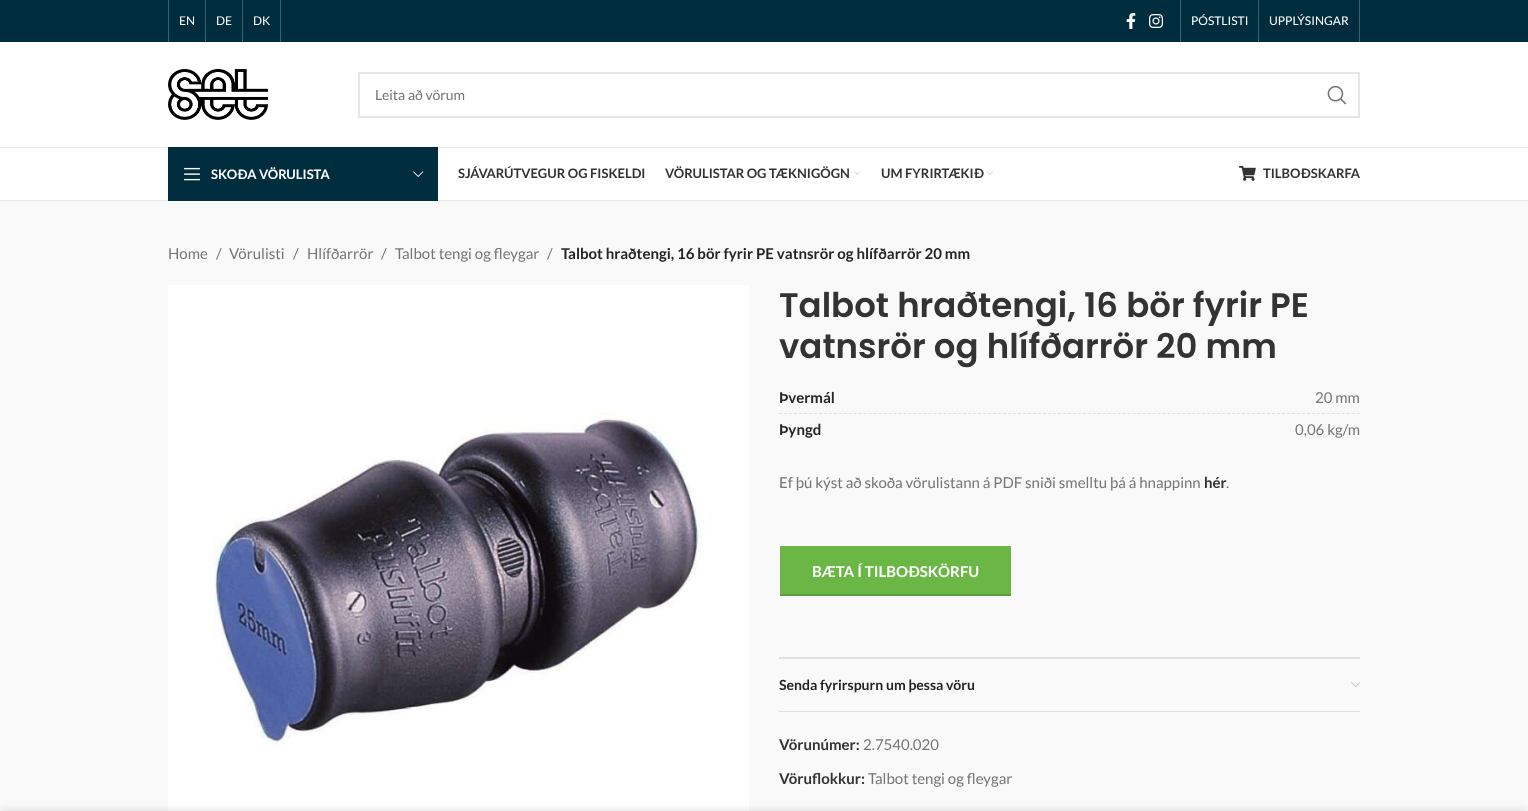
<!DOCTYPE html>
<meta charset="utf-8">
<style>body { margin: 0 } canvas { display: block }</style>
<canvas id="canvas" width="1528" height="811"></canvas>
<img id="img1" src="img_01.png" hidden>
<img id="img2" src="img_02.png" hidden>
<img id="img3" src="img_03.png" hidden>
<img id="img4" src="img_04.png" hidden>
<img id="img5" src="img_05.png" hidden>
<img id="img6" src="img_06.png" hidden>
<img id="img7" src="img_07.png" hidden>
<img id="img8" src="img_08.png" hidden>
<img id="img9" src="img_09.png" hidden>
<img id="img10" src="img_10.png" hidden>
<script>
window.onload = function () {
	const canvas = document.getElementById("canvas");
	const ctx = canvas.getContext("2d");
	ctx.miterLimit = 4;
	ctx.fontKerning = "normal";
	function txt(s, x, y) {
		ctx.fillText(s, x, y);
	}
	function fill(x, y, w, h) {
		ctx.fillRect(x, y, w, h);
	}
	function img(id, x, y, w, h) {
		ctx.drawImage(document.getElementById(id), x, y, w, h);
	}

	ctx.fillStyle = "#FFFFFF";
	fill(0, 0, 1528, 811);
	ctx.fillStyle = "#002D3D";
	fill(0, 0, 1528, 42);
	ctx.fillStyle = "#40626E";
	fill(168, 0, 1, 42);
	fill(205, 0, 1, 42);
	fill(242, 0, 1, 42);
	fill(280, 0, 1, 42);
	img("img1", 1126, 13, 10, 16);
	img("img2", 1149, 14, 14, 14);
	fill(1180, 0, 1, 42);
	fill(1258, 0, 1, 42);
	fill(1359, 0, 1, 42);
	ctx.fillStyle = "#E8E8E8";
	fill(0, 147, 1528, 1);
	img("img3", 168, 69, 100, 51);
	ctx.strokeStyle = "#E6E6E6";
	ctx.lineWidth = 2;
	ctx.strokeRect(359, 73, 1000, 44);
	img("img4", 1327, 85, 20, 20);
	fill(0, 200, 1528, 1);
	ctx.fillStyle = "#002D3D";
	fill(168, 147, 270, 54);
	img("img5", 184, 167, 16, 14);
	img("img6", 413, 171, 11, 6);
	img("img7", 854, 171, 6, 4);
	img("img7", 987, 171, 6, 4);
	img("img8", 1239, 165, 17, 16);
	ctx.fillStyle = "#F9F9F9";
	fill(0, 201, 1528, 610);
	img("img9", 168, 285, 581, 526);
	ctx.beginPath();
	ctx.moveTo(779, 413.5);
	ctx.lineTo(1360, 413.5);
	ctx.strokeStyle = "#DFDFDF";
	ctx.lineWidth = 1;
	ctx.setLineDash([3, 1.98]);
	ctx.stroke();
	ctx.fillStyle = "#6BB745";
	fill(780, 546, 231, 48);
	ctx.fillStyle = "#5B9C3B";
	fill(780, 594, 231, 2);
	ctx.strokeStyle = "#FFFFFF";
	ctx.setLineDash([]);
	ctx.strokeRect(779.5, 545.5, 232, 51);
	ctx.fillStyle = "#DFDFDF";
	fill(779, 657, 581, 2);
	fill(779, 711, 581, 1);
	img("img10", 1351, 682, 10, 5);
	ctx.fillStyle = "rgba(0, 0, 0, 0.14)";
	ctx.filter = "blur(4.5px)";
	ctx.beginPath();
	ctx.rect(0, 811, 1528, 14);
	ctx.fill();
	ctx.filter = "none";
	ctx.font = "12px Lato";
	ctx.fillStyle = "#FFFFFF";
	txt("EN", 179, 25);
	txt("DE", 216, 25);
	txt("DK", 253, 25);
	txt("PÓSTLISTI", 1191, 25);
	txt("UPPLÝSINGAR", 1269, 25);
	ctx.font = "14px Lato";
	ctx.fillStyle = "#767676";
	txt("Leita að vörum", 375, 100);
	ctx.font = "bold 13px Lato";
	ctx.fillStyle = "#FFFFFF";
	txt("SKOÐA VÖRULISTA", 211, 179);
	ctx.fillStyle = "#333333";
	txt("SJÁVARÚTVEGUR OG FISKELDI", 458, 178);
	txt("VÖRULISTAR OG TÆKNIGÖGN", 665, 178);
	txt("UM FYRIRTÆKIÐ", 881, 178);
	txt("TILBOÐSKARFA", 1263, 178);
	ctx.font = "15px Lato";
	ctx.fillStyle = "#767676";
	txt("Home", 168, 259);
	txt("/", 216, 259);
	txt("Vörulisti", 229, 259);
	txt("/", 293, 259);
	txt("Hlífðarrör", 307, 259);
	txt("/", 381, 259);
	txt("Talbot tengi og fleygar", 395, 259);
	txt("/", 547, 259);
	ctx.font = "bold 15px Lato";
	ctx.fillStyle = "#242424";
	txt("Talbot hraðtengi, 16 bör fyrir PE vatnsrör og hlífðarrör 20 mm", 561, 259);
	ctx.font = "600 34px Poppins";
	ctx.fillStyle = "#333333";
	txt("Talbot hraðtengi, 16 bör fyrir PE", 779, 317);
	txt("vatnsrör og hlífðarrör 20 mm", 779, 358);
	ctx.font = "bold 15px Lato";
	ctx.fillStyle = "#242424";
	txt("Þvermál", 779, 403);
	ctx.font = "15px Lato";
	ctx.fillStyle = "#767676";
	txt("20 mm", 1315, 403);
	ctx.font = "bold 15px Lato";
	ctx.fillStyle = "#242424";
	txt("Þyngd", 779, 435);
	ctx.font = "15px Lato";
	ctx.fillStyle = "#767676";
	txt("0,06 kg/m", 1295, 435);
	txt("Ef þú kýst að skoða vörulistann á PDF sniði smelltu þá á hnappinn", 779, 488);
	ctx.font = "bold 15px Lato";
	ctx.fillStyle = "#333333";
	txt("hér", 1204, 488);
	ctx.font = "15px Lato";
	ctx.fillStyle = "#767676";
	txt(".", 1226, 488);
	ctx.font = "bold 15px Lato";
	ctx.fillStyle = "#FFFFFF";
	txt("BÆTA Í TILBOÐSKÖRFU", 812, 577);
	ctx.font = "bold 14px Lato";
	ctx.fillStyle = "#242424";
	txt("Senda fyrirspurn um þessa vöru", 779, 690);
	ctx.font = "bold 15px Lato";
	ctx.fillStyle = "#333333";
	txt("Vörunúmer:", 779, 750);
	ctx.font = "15px Lato";
	ctx.fillStyle = "#767676";
	txt("2.7540.020", 863, 750);
	ctx.font = "bold 15px Lato";
	ctx.fillStyle = "#333333";
	txt("Vöruflokkur:", 779, 784);
	ctx.font = "15px Lato";
	ctx.fillStyle = "#767676";
	txt("Talbot tengi og fleygar", 868, 784);
};
</script>
